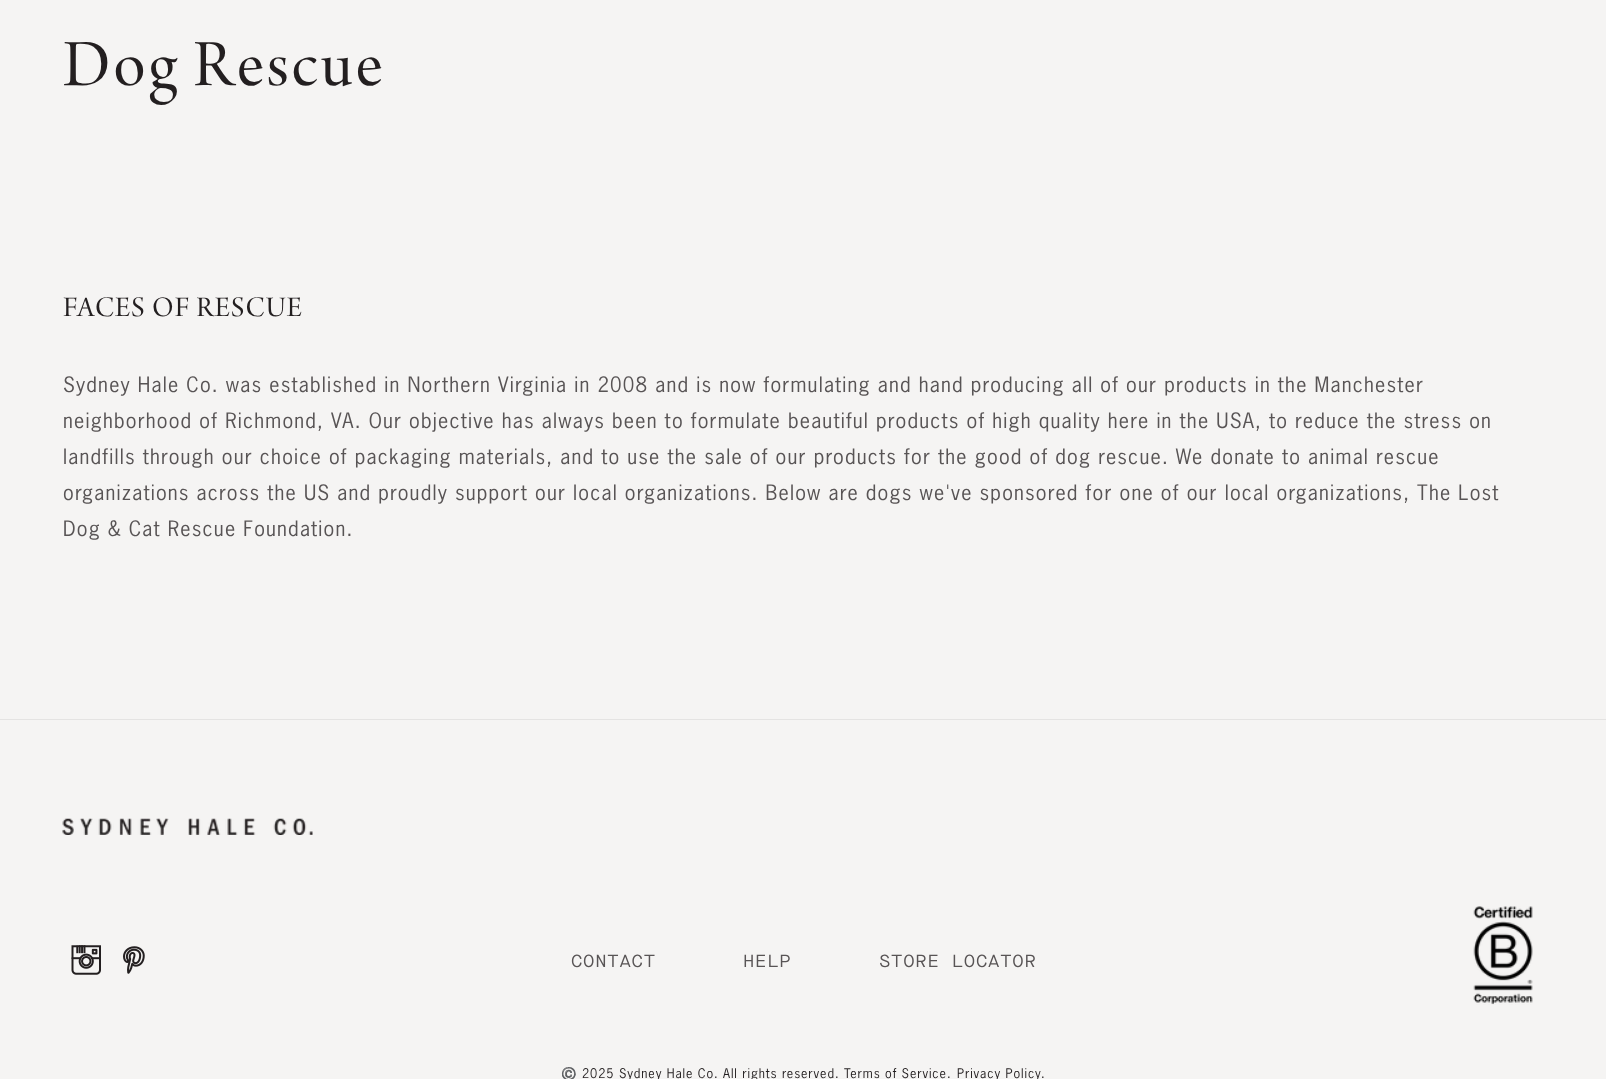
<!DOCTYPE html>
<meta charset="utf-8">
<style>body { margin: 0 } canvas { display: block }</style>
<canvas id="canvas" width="1606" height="1079"></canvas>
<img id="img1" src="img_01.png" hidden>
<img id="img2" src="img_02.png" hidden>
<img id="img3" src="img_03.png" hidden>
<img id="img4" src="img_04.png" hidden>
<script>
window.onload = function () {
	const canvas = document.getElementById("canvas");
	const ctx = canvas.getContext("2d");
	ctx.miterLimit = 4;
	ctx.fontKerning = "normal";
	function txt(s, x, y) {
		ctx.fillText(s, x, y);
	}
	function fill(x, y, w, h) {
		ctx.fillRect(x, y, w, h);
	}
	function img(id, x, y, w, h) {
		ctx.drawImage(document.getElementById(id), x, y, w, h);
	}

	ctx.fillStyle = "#F5F4F3";
	fill(0, 0, 1606, 1079);
	ctx.fillStyle = "#E4E3E2";
	fill(0, 719, 1606, 1);
	img("img1", 62, 818, 251, 17);
	img("img2", 71, 945, 30, 30);
	img("img3", 123, 946, 22, 28);
	img("img4", 1473, 906, 60, 99);
	ctx.letterSpacing = "2.75px";
	ctx.font = "70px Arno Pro";
	ctx.fillStyle = "#231F20";
	txt("Dog Rescue", 63, 85);
	ctx.letterSpacing = "1.2px";
	ctx.font = "30px Arno Pro";
	txt("FACES OF RESCUE", 63, 316);
	ctx.font = "20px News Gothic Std";
	ctx.fillStyle = "#585455";
	txt("Sydney Hale Co. was established in Northern Virginia in 2008 and is now formulating and hand producing all of our products in the Manchester", 63, 392);
	txt("neighborhood of Richmond, VA. Our objective has always been to formulate beautiful products of high quality here in the USA, to reduce the stress on", 63, 428);
	txt("landfills through our choice of packaging materials, and to use the sale of our products for the good of dog rescue. We donate to animal rescue", 63, 464);
	txt("organizations across the US and proudly support our local organizations. Below are dogs we've sponsored for one of our local organizations, The Lost", 63, 500);
	txt("Dog & Cat Rescue Foundation.", 63, 536);
	ctx.letterSpacing = "0.75px";
	ctx.font = "17.5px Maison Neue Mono";
	txt("CONTACT", 571, 967);
	txt("HELP", 743, 967);
	txt("STORE LOCATOR", 879, 967);
	ctx.letterSpacing = "0.9px";
	ctx.font = "12.5px Noto Color Emoji";
	ctx.fillStyle = "#231F20";
	txt("©️", 561, 1078);
	ctx.font = "12.5px News Gothic Std";
	txt("2025 Sydney Hale Co. All rights reserved.", 582, 1078);
	txt("Terms of Service.", 844, 1078);
	txt("Privacy Policy.", 957, 1078);
};
</script>
